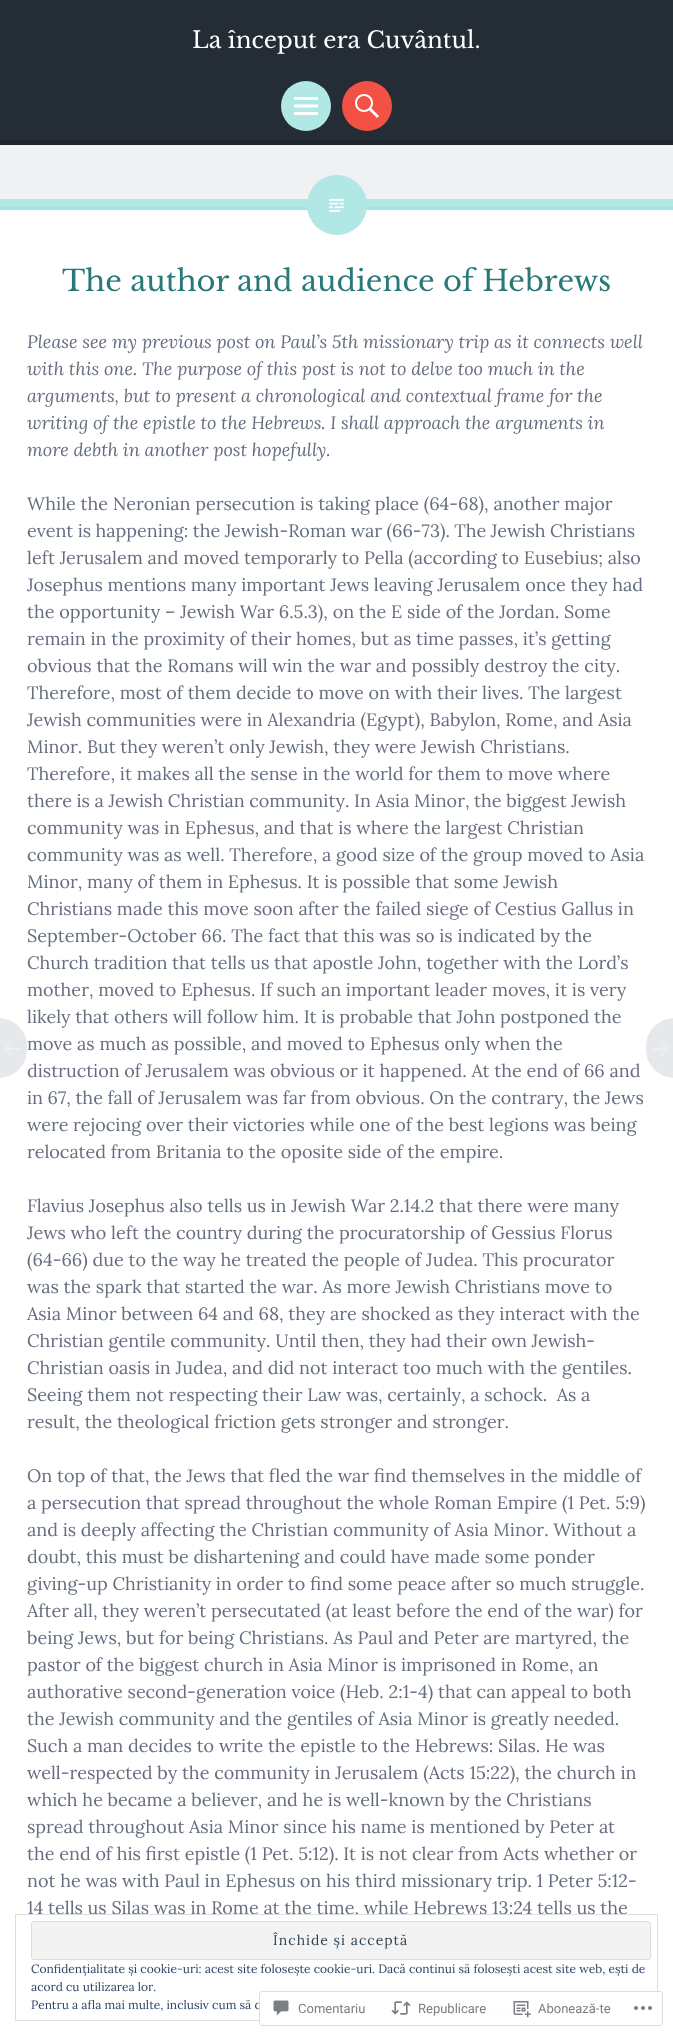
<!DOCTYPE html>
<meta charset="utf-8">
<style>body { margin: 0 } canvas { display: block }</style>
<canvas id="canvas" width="673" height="2036"></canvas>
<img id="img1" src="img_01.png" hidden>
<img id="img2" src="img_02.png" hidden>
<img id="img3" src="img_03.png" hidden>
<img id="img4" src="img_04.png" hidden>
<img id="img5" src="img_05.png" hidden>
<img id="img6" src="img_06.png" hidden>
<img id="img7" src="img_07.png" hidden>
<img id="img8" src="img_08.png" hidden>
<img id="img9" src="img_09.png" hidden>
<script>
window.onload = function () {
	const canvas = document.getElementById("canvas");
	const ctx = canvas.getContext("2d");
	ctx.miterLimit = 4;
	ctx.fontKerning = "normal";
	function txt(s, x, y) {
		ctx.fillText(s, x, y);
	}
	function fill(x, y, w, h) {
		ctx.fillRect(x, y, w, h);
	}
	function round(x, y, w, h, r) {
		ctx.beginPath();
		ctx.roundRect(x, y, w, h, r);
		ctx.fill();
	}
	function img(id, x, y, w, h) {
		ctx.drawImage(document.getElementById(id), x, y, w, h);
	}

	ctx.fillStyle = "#F0F1F3";
	fill(0, 0, 673, 2036);
	ctx.fillStyle = "#242D36";
	fill(0, 0, 673, 140);
	ctx.fillStyle = "#1E252D";
	fill(0, 140, 673, 5);
	ctx.fillStyle = "#B1E8E6";
	ctx.beginPath();
	ctx.arc(306, 106, 25, 0, Math.PI * 2);
	ctx.fill();
	img("img1", 294, 97, 24, 18);
	ctx.fillStyle = "#F45145";
	ctx.beginPath();
	ctx.arc(367, 106, 25, 0, Math.PI * 2);
	ctx.fill();
	img("img2", 355, 94, 24, 24);
	ctx.fillStyle = "#FFFFFF";
	fill(0, 210, 673, 1826);
	ctx.fillStyle = "#B1E8E6";
	fill(0, 199, 673, 8);
	ctx.fillStyle = "#A4E4E1";
	fill(0, 207, 673, 3);
	ctx.fillStyle = "#B1E8E6";
	ctx.beginPath();
	ctx.arc(337, 205, 30, 0, Math.PI * 2);
	ctx.fill();
	img("img3", 329, 199, 15, 13);
	ctx.fillStyle = "#E6E8EB";
	round(-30, 1018, 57, 60, 30);
	img("img4", 4, 1042, 17, 14);
	round(646, 1018, 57, 60, 30);
	img("img5", 652, 1042, 17, 14);
	ctx.font = "23px Libre Baskerville";
	ctx.fillStyle = "#FFFFFF";
	txt("La început era Cuvântul.", 192, 48);
	ctx.font = "29px Libre Baskerville";
	ctx.fillStyle = "#297978";
	txt("The author and audience of Hebrews", 62, 291);
	ctx.font = "italic 18px Lora";
	ctx.fillStyle = "#656E7F";
	txt("Please see my previous post on Paul’s 5th missionary trip as it connects well", 27, 348);
	txt("with this one. The purpose of this post is not to delve too much in the", 27, 375);
	txt("arguments, but to present a chronological and contextual frame for the", 27, 402);
	txt("writing of the epistle to the Hebrews. I shall approach the arguments in", 27, 429);
	txt("more debth in another post hopefully.", 27, 456);
	ctx.font = "18px Lora";
	txt("While the Neronian persecution is taking place (64-68), another major", 27, 510);
	ctx.wordSpacing = "-0.25px";
	txt("event is happening: the Jewish-Roman war (66-73). The Jewish Christians", 27, 537);
	ctx.wordSpacing = "0px";
	txt("left Jerusalem and moved temporarly to Pella (according to Eusebius; also", 27, 564);
	txt("Josephus mentions many important Jews leaving Jerusalem once they had", 27, 591);
	txt("the opportunity – Jewish War 6.5.3), on the E side of the Jordan. Some", 27, 618);
	txt("remain in the proximity of their homes, but as time passes, it’s getting", 27, 645);
	txt("obvious that the Romans will win the war and possibly destroy the city.", 27, 672);
	txt("Therefore, most of them decide to move on with their lives. The largest", 27, 699);
	txt("Jewish communities were in Alexandria (Egypt), Babylon, Rome, and Asia", 27, 726);
	ctx.wordSpacing = "-0.1px";
	txt("Minor. But they weren’t only Jewish, they were Jewish Christians.", 27, 753);
	ctx.wordSpacing = "0px";
	txt("Therefore, it makes all the sense in the world for them to move where", 27, 780);
	ctx.wordSpacing = "-0.1px";
	txt("there is a Jewish Christian community. In Asia Minor, the biggest Jewish", 27, 807);
	ctx.wordSpacing = "0px";
	txt("community was in Ephesus, and that is where the largest Christian", 27, 834);
	txt("community was as well. Therefore, a good size of the group moved to Asia", 27, 861);
	txt("Minor, many of them in Ephesus. It is possible that some Jewish", 27, 888);
	txt("Christians made this move soon after the failed siege of Cestius Gallus in", 27, 915);
	txt("September-October 66. The fact that this was so is indicated by the", 27, 942);
	txt("Church tradition that tells us that apostle John, together with the Lord’s", 27, 969);
	txt("mother, moved to Ephesus. If such an important leader moves, it is very", 27, 996);
	txt("likely that others will follow him. It is probable that John postponed the", 27, 1023);
	txt("move as much as possible, and moved to Ephesus only when the", 27, 1050);
	txt("distruction of Jerusalem was obvious or it happened. At the end of 66 and", 27, 1077);
	ctx.wordSpacing = "-0.1px";
	txt("in 67, the fall of Jerusalem was far from obvious. On the contrary, the Jews", 27, 1104);
	ctx.wordSpacing = "0px";
	txt("were rejocing over their victories while one of the best legions was being", 27, 1131);
	txt("relocated from Britania to the oposite side of the empire.", 27, 1158);
	txt("Flavius Josephus also tells us in Jewish War 2.14.2 that there were many", 27, 1212);
	txt("Jews who left the country during the procuratorship of Gessius Florus", 27, 1239);
	txt("(64-66) due to the way he treated the people of Judea. This procurator", 27, 1266);
	txt("was the spark that started the war. As more Jewish Christians move to", 27, 1293);
	txt("Asia Minor between 64 and 68, they are shocked as they interact with the", 27, 1320);
	txt("Christian gentile community. Until then, they had their own Jewish-", 27, 1347);
	txt("Christian oasis in Judea, and did not interact too much with the gentiles.", 27, 1374);
	txt("Seeing them not respecting their Law was, certainly, a schock.  As a", 27, 1401);
	txt("result, the theological friction gets stronger and stronger.", 27, 1428);
	txt("On top of that, the Jews that fled the war find themselves in the middle of", 27, 1482);
	txt("a persecution that spread throughout the whole Roman Empire (1 Pet. 5:9)", 27, 1509);
	txt("and is deeply affecting the Christian community of Asia Minor. Without a", 27, 1536);
	txt("doubt, this must be dishartening and could have made some ponder", 27, 1563);
	txt("giving-up Christianity in order to find some peace after so much struggle.", 27, 1590);
	txt("After all, they weren’t persecutated (at least before the end of the war) for", 27, 1617);
	txt("being Jews, but for being Christians. As Paul and Peter are martyred, the", 27, 1644);
	txt("pastor of the biggest church in Asia Minor is imprisoned in Rome, an", 27, 1671);
	txt("authorative second-generation voice (Heb. 2:1-4) that can appeal to both", 27, 1698);
	txt("the Jewish community and the gentiles of Asia Minor is greatly needed.", 27, 1725);
	txt("Such a man decides to write the epistle to the Hebrews: Silas. He was", 27, 1752);
	txt("well-respected by the community in Jerusalem (Acts 15:22), the church in", 27, 1779);
	txt("which he became a believer, and he is well-known by the Christians", 27, 1806);
	txt("spread throughout Asia Minor since his name is mentioned by Peter at", 27, 1833);
	txt("the end of his first epistle (1 Pet. 5:12). It is not clear from Acts whether or", 27, 1860);
	txt("not he was with Paul in Ephesus on his third missionary trip. 1 Peter 5:12-", 27, 1887);
	txt("14 tells us Silas was in Rome at the time, while Hebrews 13:24 tells us the", 27, 1914);
	ctx.fillStyle = "#FFFFFF";
	fill(356, 1915, 2, 3);
	ctx.strokeStyle = "#DEDEDE";
	ctx.strokeRect(15.5, 1914.5, 642, 106);
	ctx.fillStyle = "#F3F3F3";
	ctx.beginPath();
	ctx.roundRect(31.5, 1921.5, 619, 38, 2.5);
	ctx.fill();
	ctx.stroke();
	ctx.letterSpacing = "1px";
	ctx.font = "14px Lora";
	ctx.fillStyle = "#2E4453";
	txt("Închide și acceptă", 273, 1945);
	ctx.letterSpacing = "0px";
	ctx.font = "12px Lora";
	ctx.fillStyle = "#2E4467";
	txt("Confidențialitate și cookie-uri: acest site folosește cookie-uri. Dacă continui să folosești acest site web, ești de", 31, 1973);
	txt("acord cu utilizarea lor.", 31, 1991);
	txt("Pentru a afla mai multe, inclusiv cum să c", 31, 2009);
	fill(456, 2010, 103, 1);
	ctx.fillStyle = "rgba(255, 255, 255, 0.98)";
	round(259, 1991, 404, 35, 3);
	ctx.beginPath();
	ctx.roundRect(259.5, 1991.5, 403, 34, 2.5);
	ctx.strokeStyle = "rgba(220, 220, 222, 0.98)";
	ctx.stroke();
	img("img6", 273, 2000, 16, 16);
	ctx.font = "13px Roboto";
	ctx.fillStyle = "#7B7F84";
	txt("Comentariu", 298, 2013);
	img("img7", 391, 2001, 20, 14);
	txt("Republicare", 418, 2013);
	img("img8", 513, 2001, 18, 17);
	txt("Abonează-te", 538, 2013);
	img("img9", 634, 2006, 18, 4);
};
</script>
